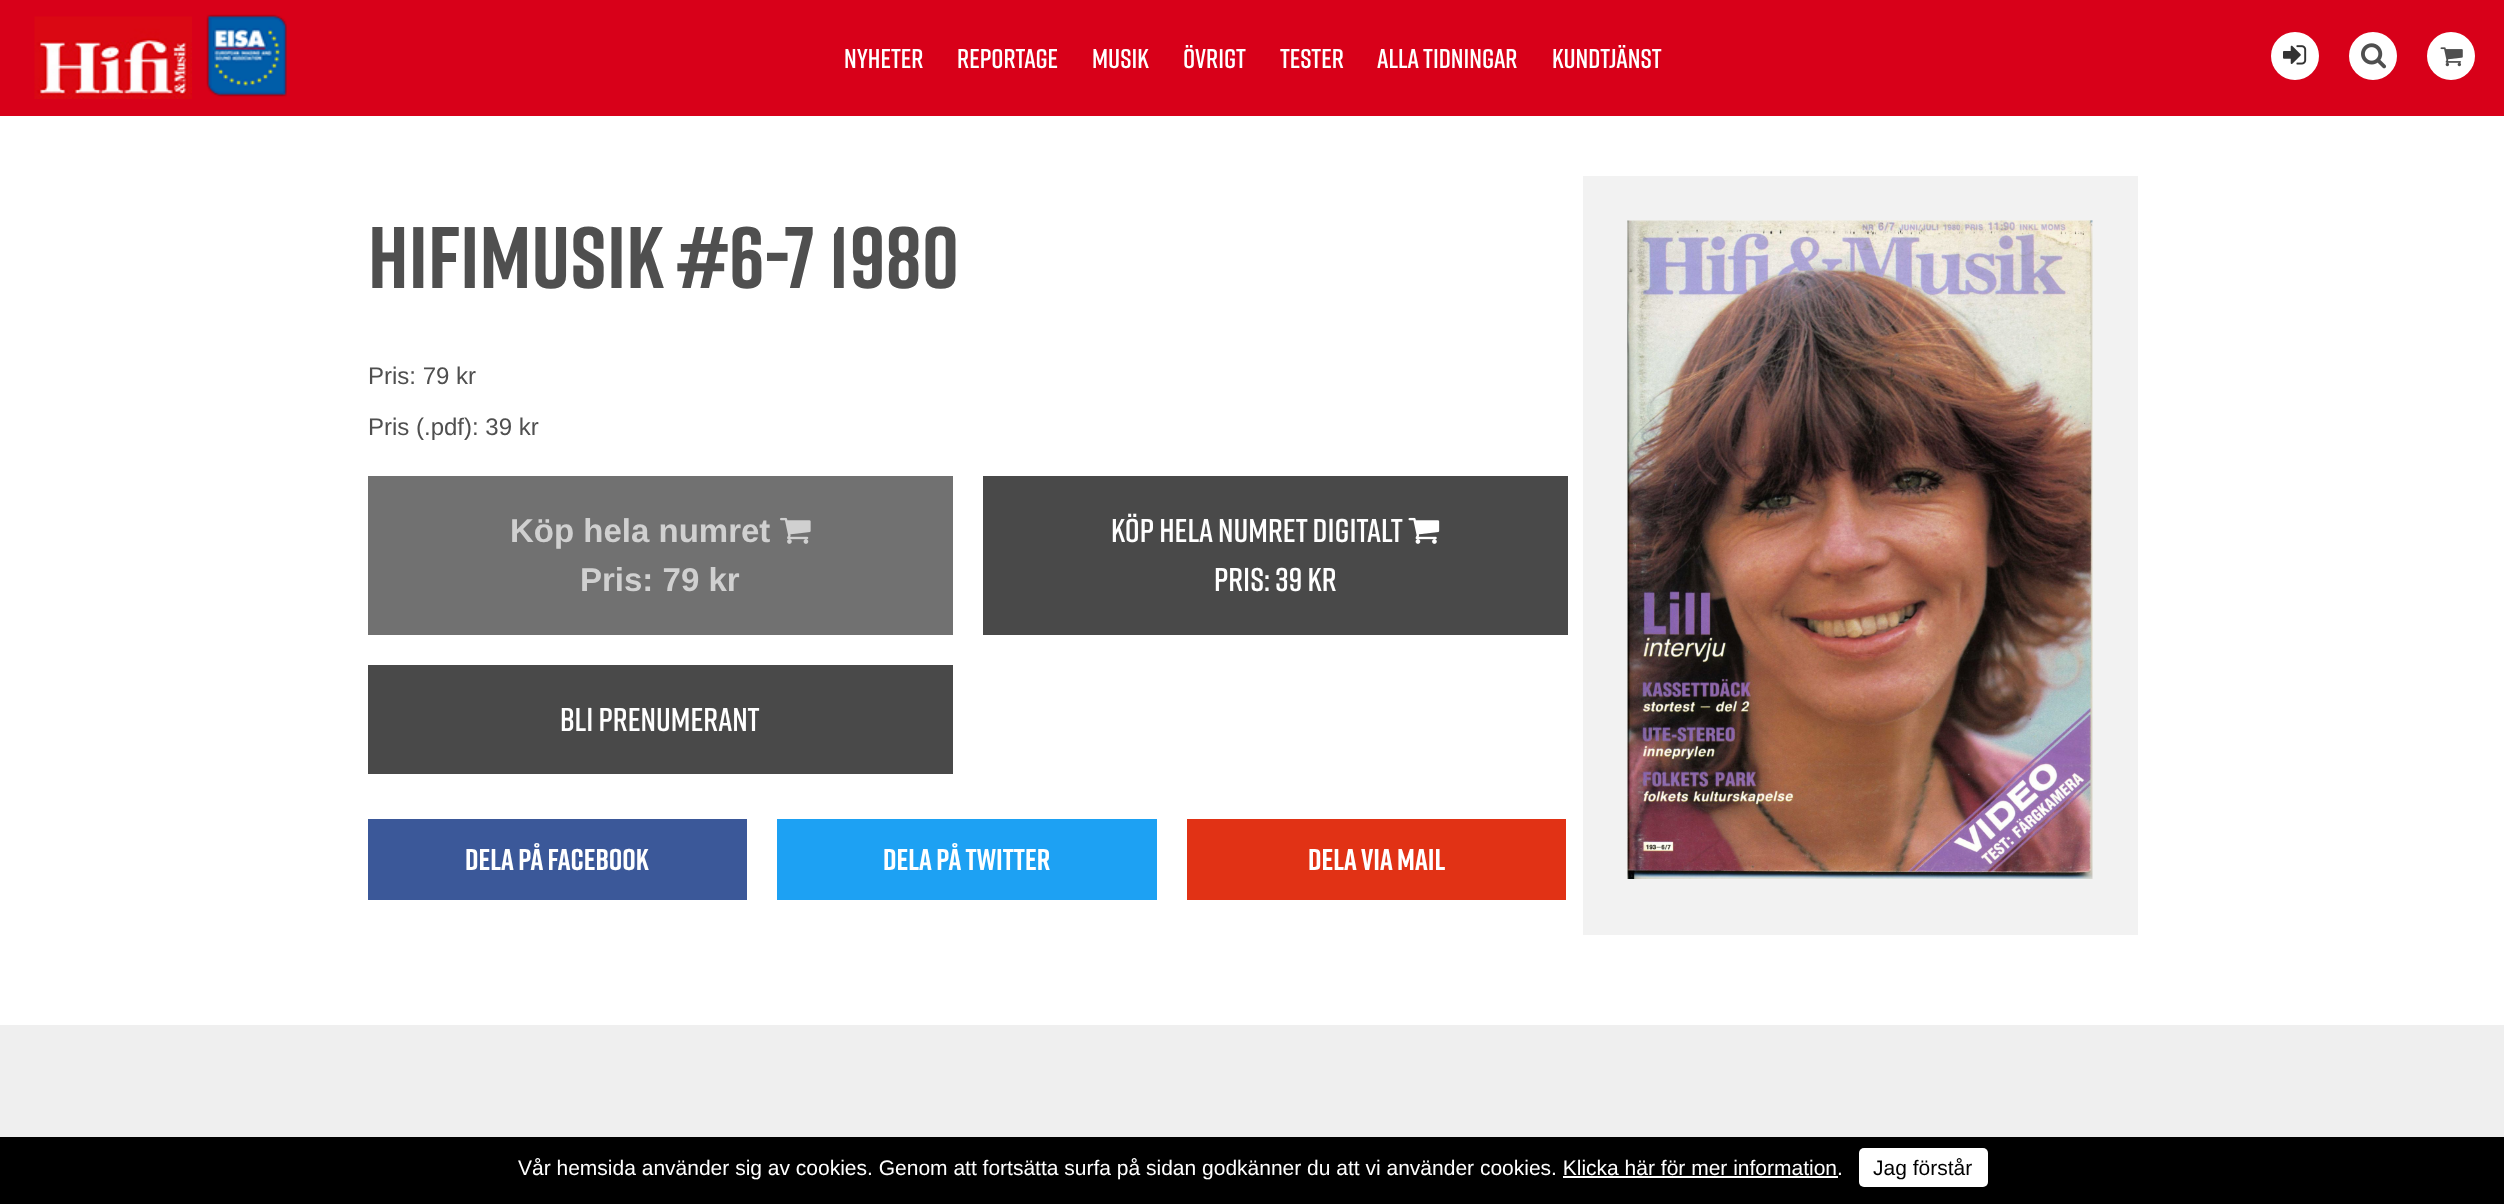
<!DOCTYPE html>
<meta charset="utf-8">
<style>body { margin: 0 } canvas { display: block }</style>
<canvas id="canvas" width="2504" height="1204"></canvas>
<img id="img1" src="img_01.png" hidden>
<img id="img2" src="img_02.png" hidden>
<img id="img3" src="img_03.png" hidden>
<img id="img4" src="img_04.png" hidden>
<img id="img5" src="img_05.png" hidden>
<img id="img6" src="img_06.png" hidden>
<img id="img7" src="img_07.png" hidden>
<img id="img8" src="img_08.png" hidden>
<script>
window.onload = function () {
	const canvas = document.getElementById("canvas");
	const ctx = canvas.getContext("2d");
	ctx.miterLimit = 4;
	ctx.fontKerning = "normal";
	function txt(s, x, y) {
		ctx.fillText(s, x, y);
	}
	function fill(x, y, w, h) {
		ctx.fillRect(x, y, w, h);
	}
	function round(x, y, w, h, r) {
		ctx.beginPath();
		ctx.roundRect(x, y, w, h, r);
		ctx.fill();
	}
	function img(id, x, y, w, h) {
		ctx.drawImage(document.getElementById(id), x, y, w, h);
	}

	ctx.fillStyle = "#FFFFFF";
	fill(0, 0, 2504, 1204);
	ctx.fillStyle = "#D80019";
	fill(0, 0, 2504, 116);
	img("img1", 34, 16, 158, 83);
	img("img2", 206, 14, 81, 83);
	ctx.fillStyle = "#FFFFFF";
	ctx.beginPath();
	ctx.arc(2295, 56, 24, 0, Math.PI * 2);
	ctx.fill();
	img("img3", 2283, 45, 24, 20);
	ctx.beginPath();
	ctx.arc(2373, 56, 24, 0, Math.PI * 2);
	ctx.fill();
	img("img4", 2361, 43, 26, 26);
	ctx.beginPath();
	ctx.arc(2451, 56, 24, 0, Math.PI * 2);
	ctx.fill();
	img("img5", 2440, 47, 23, 20);
	ctx.fillStyle = "#717171";
	fill(368, 476, 585, 159);
	img("img6", 780, 517, 31, 27);
	ctx.fillStyle = "#494949";
	fill(983, 476, 585, 159);
	img("img7", 1408, 517, 32, 27);
	fill(368, 665, 585, 109);
	ctx.fillStyle = "#3B5899";
	fill(368, 819, 379, 81);
	ctx.fillStyle = "#1DA1F3";
	fill(777, 819, 380, 81);
	ctx.fillStyle = "#E13215";
	fill(1187, 819, 379, 81);
	ctx.fillStyle = "#F2F2F2";
	fill(1583, 176, 555, 759);
	img("img8", 1627, 220, 466, 659);
	ctx.fillStyle = "#EFEFEF";
	fill(0, 1025, 2504, 112);
	ctx.fillStyle = "#000000";
	fill(0, 1137, 2504, 67);
	ctx.fillStyle = "#FFFFFF";
	fill(1563, 1176, 275, 2);
	round(1859, 1148, 129, 39, 5);
	ctx.font = "600 27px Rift";
	txt("NYHETER", 844, 68);
	txt("REPORTAGE", 957, 68);
	txt("MUSIK", 1092, 68);
	txt("ÖVRIGT", 1183, 68);
	txt("TESTER", 1280, 68);
	txt("ALLA TIDNINGAR", 1377, 68);
	txt("KUNDTJÄNST", 1552, 68);
	ctx.font = "bold 87px Rift";
	ctx.fillStyle = "#4F4F4F";
	txt("Hifimusik #6-7 1980", 368, 288);
	ctx.font = "24px Liberation Sans";
	txt("Pris: 79 kr", 368, 384);
	txt("Pris (.pdf): 39 kr", 368, 435);
	ctx.font = "bold 33px Liberation Sans";
	ctx.fillStyle = "#D0D0D0";
	txt("Köp hela numret", 510, 542);
	txt("Pris: 79 kr", 580, 591);
	ctx.font = "600 33px Rift";
	ctx.fillStyle = "#FFFFFF";
	txt("Köp hela numret digitalt", 1111, 542);
	txt("Pris: 39 kr", 1214, 591);
	txt("Bli prenumerant", 560, 731);
	ctx.font = "bold 30px Rift";
	txt("DELA PÅ FACEBOOK", 465, 870);
	txt("DELA PÅ TWITTER", 883, 870);
	txt("DELA VIA MAIL", 1308, 870);
	ctx.font = "21px Liberation Sans";
	txt("Vår hemsida använder sig av cookies. Genom att fortsätta surfa på sidan godkänner du att vi använder cookies. Klicka här för mer information.", 518, 1175);
	ctx.fillStyle = "#000000";
	txt("Jag förstår", 1873, 1175);
};
</script>
